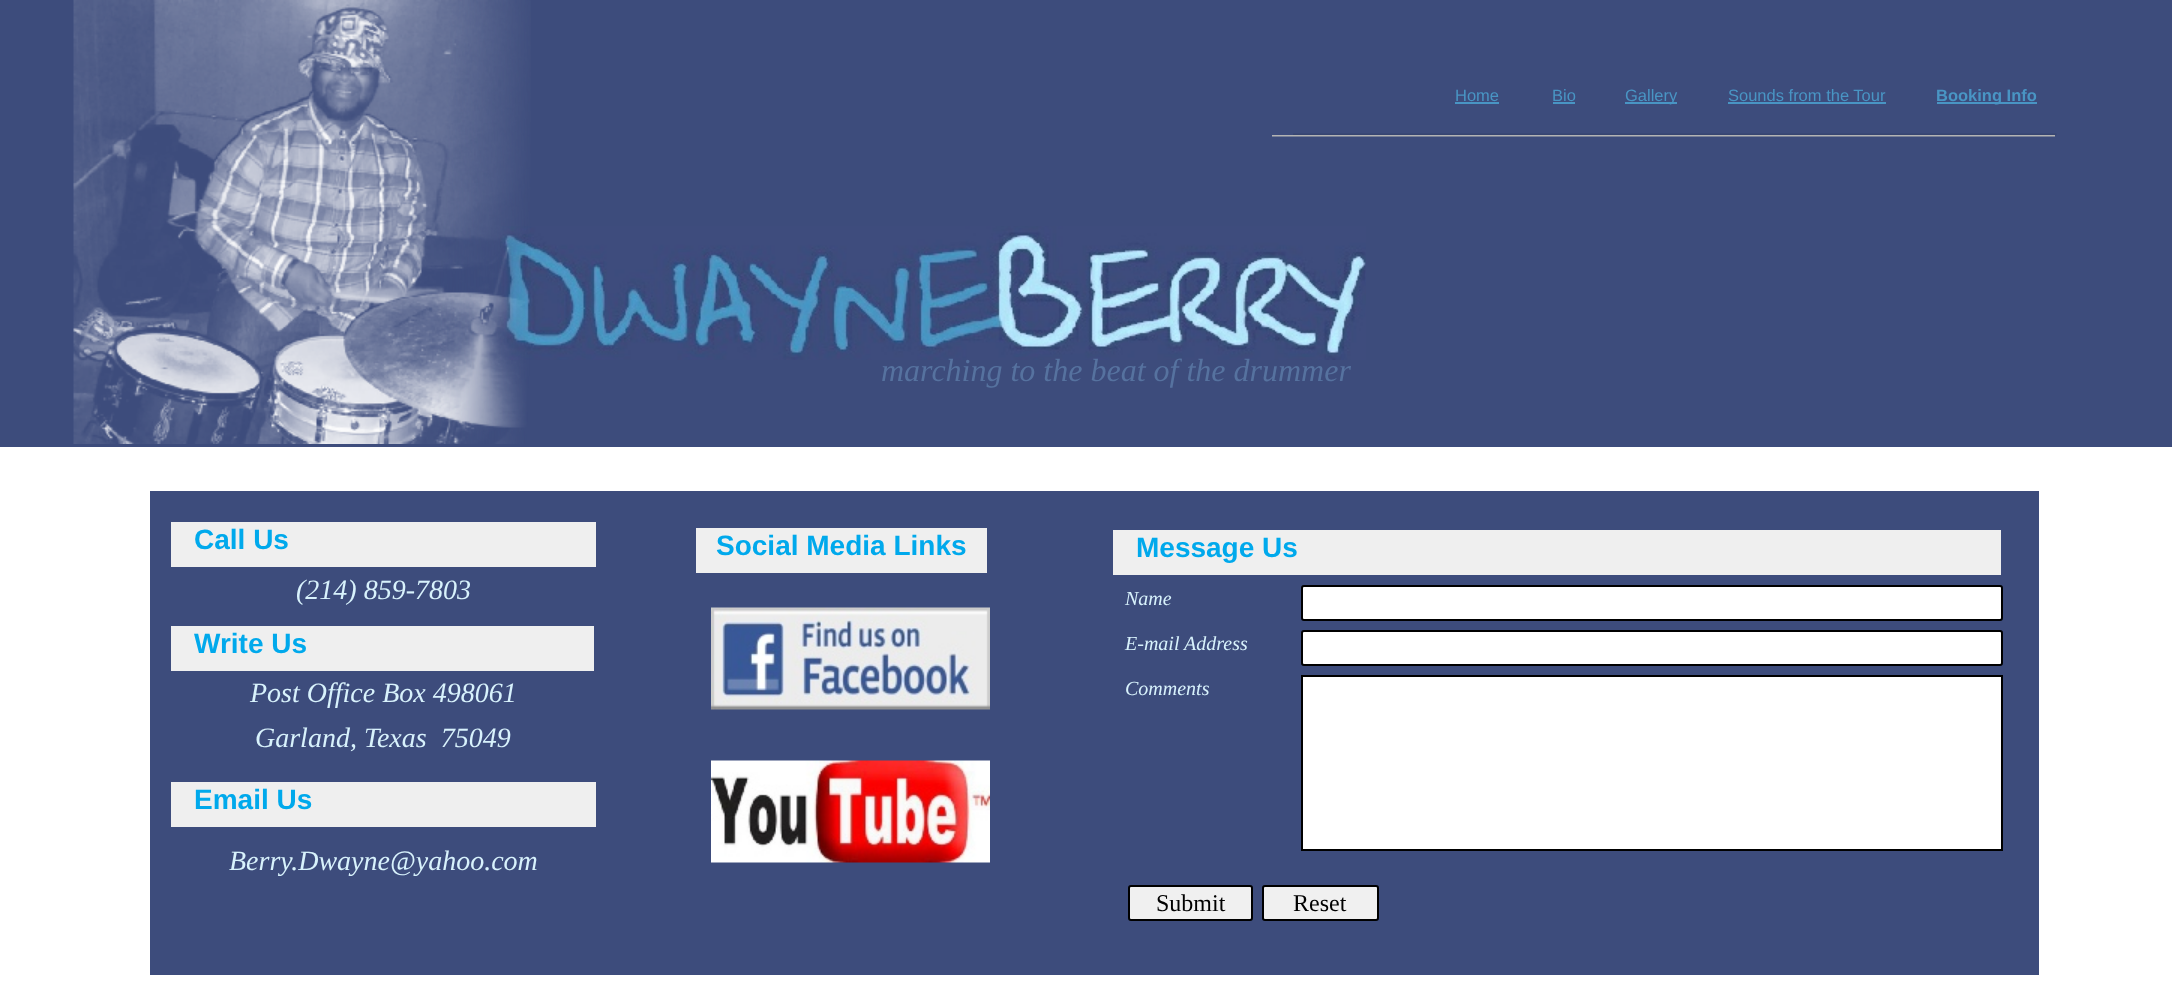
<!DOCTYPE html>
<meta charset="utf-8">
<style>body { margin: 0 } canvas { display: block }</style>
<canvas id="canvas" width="2172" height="1005"></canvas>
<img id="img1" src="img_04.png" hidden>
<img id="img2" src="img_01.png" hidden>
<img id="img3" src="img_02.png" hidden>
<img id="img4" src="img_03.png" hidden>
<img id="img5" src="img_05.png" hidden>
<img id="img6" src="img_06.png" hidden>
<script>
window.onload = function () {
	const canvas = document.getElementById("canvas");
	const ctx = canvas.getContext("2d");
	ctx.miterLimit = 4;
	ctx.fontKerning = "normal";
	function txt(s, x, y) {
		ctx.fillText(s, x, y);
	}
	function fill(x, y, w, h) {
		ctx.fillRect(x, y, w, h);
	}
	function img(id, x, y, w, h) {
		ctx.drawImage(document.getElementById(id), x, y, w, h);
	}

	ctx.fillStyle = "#FFFFFF";
	fill(0, 0, 2172, 1005);
	ctx.fillStyle = "#3D4C7C";
	fill(0, 0, 2172, 447);
	img("img1", 500, 226, 866, 134);
	img("img2", 73, 0, 458, 444);
	ctx.fillStyle = "#4995C4";
	fill(1455, 102, 44, 2);
	fill(1553, 102, 22, 2);
	fill(1625, 102, 52, 2);
	fill(1728, 102, 158, 2);
	fill(1937, 102, 100, 2);
	img("img3", 1293, 133, 764, 2);
	img("img4", 1272, 135, 783, 2);
	ctx.fillStyle = "#3D4C7C";
	fill(150, 491, 1889, 484);
	ctx.fillStyle = "#EFEFEF";
	fill(171, 522, 425, 45);
	fill(696, 528, 291, 45);
	fill(1113, 530, 888, 45);
	fill(171, 626, 423, 45);
	img("img5", 711, 607, 279, 103);
	ctx.fillStyle = "#FFFFFF";
	ctx.beginPath();
	ctx.roundRect(1302, 586, 700, 34, 2);
	ctx.fill();
	ctx.strokeStyle = "#000000";
	ctx.lineWidth = 2;
	ctx.stroke();
	ctx.beginPath();
	ctx.roundRect(1302, 631, 700, 34, 2);
	ctx.fill();
	ctx.stroke();
	ctx.beginPath();
	ctx.rect(1302, 676, 700, 174);
	ctx.fill();
	ctx.stroke();
	ctx.fillStyle = "#F0F0F0";
	ctx.beginPath();
	ctx.roundRect(1129, 886, 123, 34, 2);
	ctx.fill();
	ctx.stroke();
	ctx.beginPath();
	ctx.roundRect(1263, 886, 115, 34, 2);
	ctx.fill();
	ctx.stroke();
	ctx.fillStyle = "#EFEFEF";
	fill(171, 782, 425, 45);
	img("img6", 711, 760, 279, 103);
	ctx.font = "16.5px Liberation Sans";
	ctx.fillStyle = "#4995C4";
	txt("Home", 1455, 101);
	txt("Bio", 1552, 101);
	txt("Gallery", 1625, 101);
	txt("Sounds from the Tour", 1728, 101);
	ctx.font = "bold 16.5px Liberation Sans";
	txt("Booking Info", 1936, 101);
	ctx.font = "italic 32px Liberation Serif";
	ctx.fillStyle = "#56729F";
	txt("marching to the beat of the drummer", 881, 381);
	ctx.font = "bold 28px Liberation Sans";
	ctx.fillStyle = "#00A9EC";
	txt("Call Us", 194, 549);
	txt("Social Media Links", 716, 555);
	txt("Message Us", 1136, 557);
	txt("Write Us", 194, 653);
	ctx.font = "italic 28px Liberation Serif";
	ctx.fillStyle = "#D8F2FC";
	txt("(214) 859-7803", 296, 599);
	ctx.font = "italic 20px Liberation Serif";
	txt("Name", 1125, 605);
	txt("E-mail Address", 1125, 650);
	txt("Comments", 1125, 695);
	ctx.font = "24px Liberation Serif";
	ctx.fillStyle = "#000000";
	txt("Submit", 1156, 911);
	txt("Reset", 1293, 911);
	ctx.font = "italic 28px Liberation Serif";
	ctx.fillStyle = "#D8F2FC";
	txt("Post Office Box 498061", 250, 702);
	txt("Garland, Texas  75049", 255, 747);
	ctx.font = "bold 28px Liberation Sans";
	ctx.fillStyle = "#00A9EC";
	txt("Email Us", 194, 809);
	ctx.font = "italic 28px Liberation Serif";
	ctx.fillStyle = "#D8F2FC";
	txt("Berry.Dwayne@yahoo.com", 229, 870);
};
</script>
